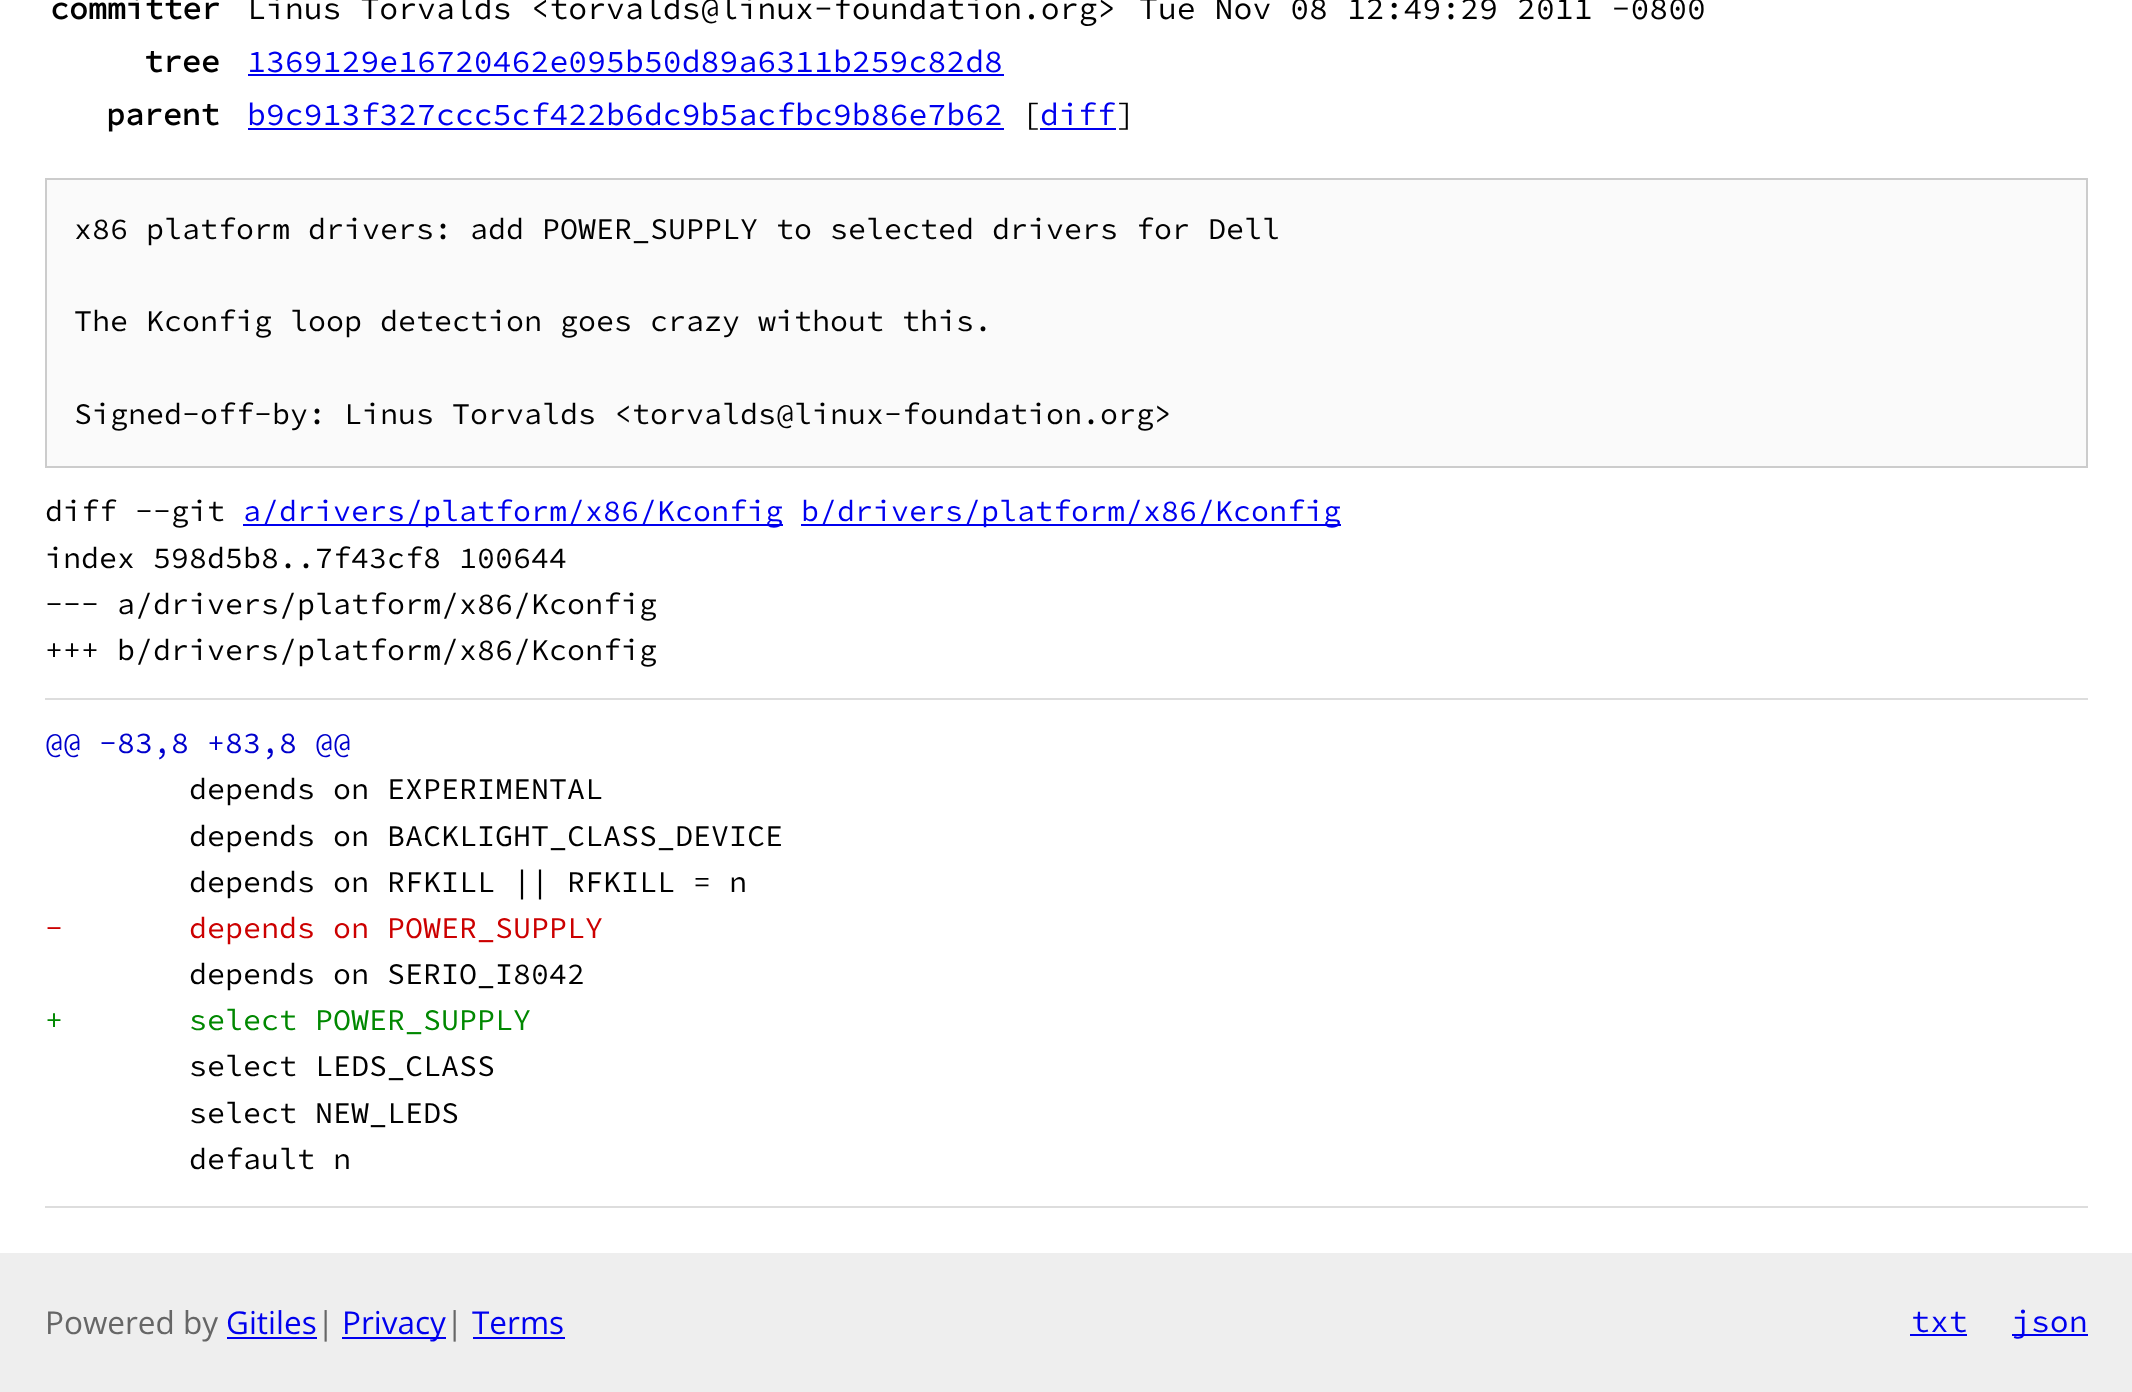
<!DOCTYPE html>
<meta charset="utf-8">
<style>body { margin: 0 } canvas { display: block }</style>
<canvas id="canvas" width="2132" height="1392"></canvas>
<script>
window.onload = function () {
	const canvas = document.getElementById("canvas");
	const ctx = canvas.getContext("2d");
	ctx.miterLimit = 4;
	ctx.fontKerning = "normal";
	function txt(s, x, y) {
		ctx.fillText(s, x, y);
	}
	function fill(x, y, w, h) {
		ctx.fillRect(x, y, w, h);
	}

	ctx.fillStyle = "#FFFFFF";
	fill(0, 0, 2132, 1392);
	ctx.fillStyle = "#0000EE";
	fill(248, 74, 756, 2);
	fill(248, 128, 756, 2);
	fill(1040, 128, 76, 2);
	ctx.fillStyle = "#FAFAFA";
	ctx.beginPath();
	ctx.rect(46, 179, 2041, 288);
	ctx.fill();
	ctx.strokeStyle = "#CCCCCC";
	ctx.lineWidth = 2;
	ctx.stroke();
	ctx.fillStyle = "#0000EE";
	fill(243, 524, 540, 2);
	fill(801, 524, 540, 2);
	ctx.fillStyle = "#DDDDDD";
	fill(45, 698, 2043, 2);
	fill(45, 1206, 2043, 2);
	ctx.fillStyle = "#EEEEEE";
	fill(0, 1253, 2132, 139);
	ctx.fillStyle = "#0000EE";
	fill(227, 1337, 90, 2);
	fill(342, 1337, 104, 2);
	fill(473, 1337, 92, 2);
	fill(1910, 1334, 57, 2);
	fill(2012, 1334, 76, 2);
	ctx.font = "bold 31.5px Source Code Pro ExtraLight";
	ctx.fillStyle = "#000000";
	txt("committer", 50, 19);
	ctx.font = "200 31.5px Source Code Pro ExtraLight";
	txt("Linus Torvalds <torvalds@linux-foundation.org>", 247, 19);
	txt("Tue Nov 08 12:49:29 2011 -0800", 1139, 19);
	ctx.font = "bold 31.5px Source Code Pro ExtraLight";
	txt("tree", 144, 72);
	ctx.font = "200 31.5px Source Code Pro ExtraLight";
	ctx.fillStyle = "#0000EE";
	txt("1369129e16720462e095b50d89a6311b259c82d8", 247, 72);
	ctx.font = "bold 31.5px Source Code Pro ExtraLight";
	ctx.fillStyle = "#000000";
	txt("parent", 106, 125);
	ctx.font = "200 31.5px Source Code Pro ExtraLight";
	ctx.fillStyle = "#0000EE";
	txt("b9c913f327ccc5cf422b6dc9b5acfbc9b86e7b62", 247, 125);
	ctx.fillStyle = "#000000";
	txt("[", 1022, 125);
	ctx.fillStyle = "#0000EE";
	txt("diff", 1040, 125);
	ctx.fillStyle = "#000000";
	txt("]", 1116, 125);
	ctx.font = "200 30px Source Code Pro ExtraLight";
	txt("x86 platform drivers: add POWER_SUPPLY to selected drivers for Dell", 74, 239);
	txt("The Kconfig loop detection goes crazy without this.", 74, 331);
	txt("Signed-off-by: Linus Torvalds <torvalds@linux-foundation.org>", 74, 424);
	txt("diff --git", 45, 521);
	ctx.fillStyle = "#0000EE";
	txt("a/drivers/platform/x86/Kconfig", 243, 521);
	txt("b/drivers/platform/x86/Kconfig", 801, 521);
	ctx.fillStyle = "#000000";
	txt("index 598d5b8..7f43cf8 100644", 45, 568);
	txt("--- a/drivers/platform/x86/Kconfig", 45, 614);
	txt("+++ b/drivers/platform/x86/Kconfig", 45, 660);
	ctx.fillStyle = "#0000CC";
	txt("@@ -83,8 +83,8 @@", 45, 753);
	ctx.fillStyle = "#000000";
	txt("depends on EXPERIMENTAL", 189, 799);
	txt("depends on BACKLIGHT_CLASS_DEVICE", 189, 846);
	txt("depends on RFKILL || RFKILL = n", 189, 892);
	ctx.fillStyle = "#CC0000";
	txt("-", 45, 938);
	txt("depends on POWER_SUPPLY", 189, 938);
	ctx.fillStyle = "#000000";
	txt("depends on SERIO_I8042", 189, 984);
	ctx.fillStyle = "#008800";
	txt("+", 45, 1030);
	txt("select POWER_SUPPLY", 189, 1030);
	ctx.fillStyle = "#000000";
	txt("select LEDS_CLASS", 189, 1076);
	txt("select NEW_LEDS", 189, 1123);
	txt("default n", 189, 1169);
	ctx.font = "31.5px Open Sans";
	ctx.fillStyle = "#666666";
	txt("Powered by", 45, 1334);
	ctx.fillStyle = "#0000EE";
	txt("Gitiles", 226, 1334);
	ctx.fillStyle = "#666666";
	txt("|", 317, 1334);
	ctx.fillStyle = "#0000EE";
	txt("Privacy", 342, 1334);
	ctx.fillStyle = "#666666";
	txt("|", 446, 1334);
	ctx.fillStyle = "#0000EE";
	txt("Terms", 472, 1334);
	ctx.font = "200 31.5px Source Code Pro ExtraLight";
	txt("txt", 1911, 1332);
	txt("json", 2012, 1332);
};
</script>
